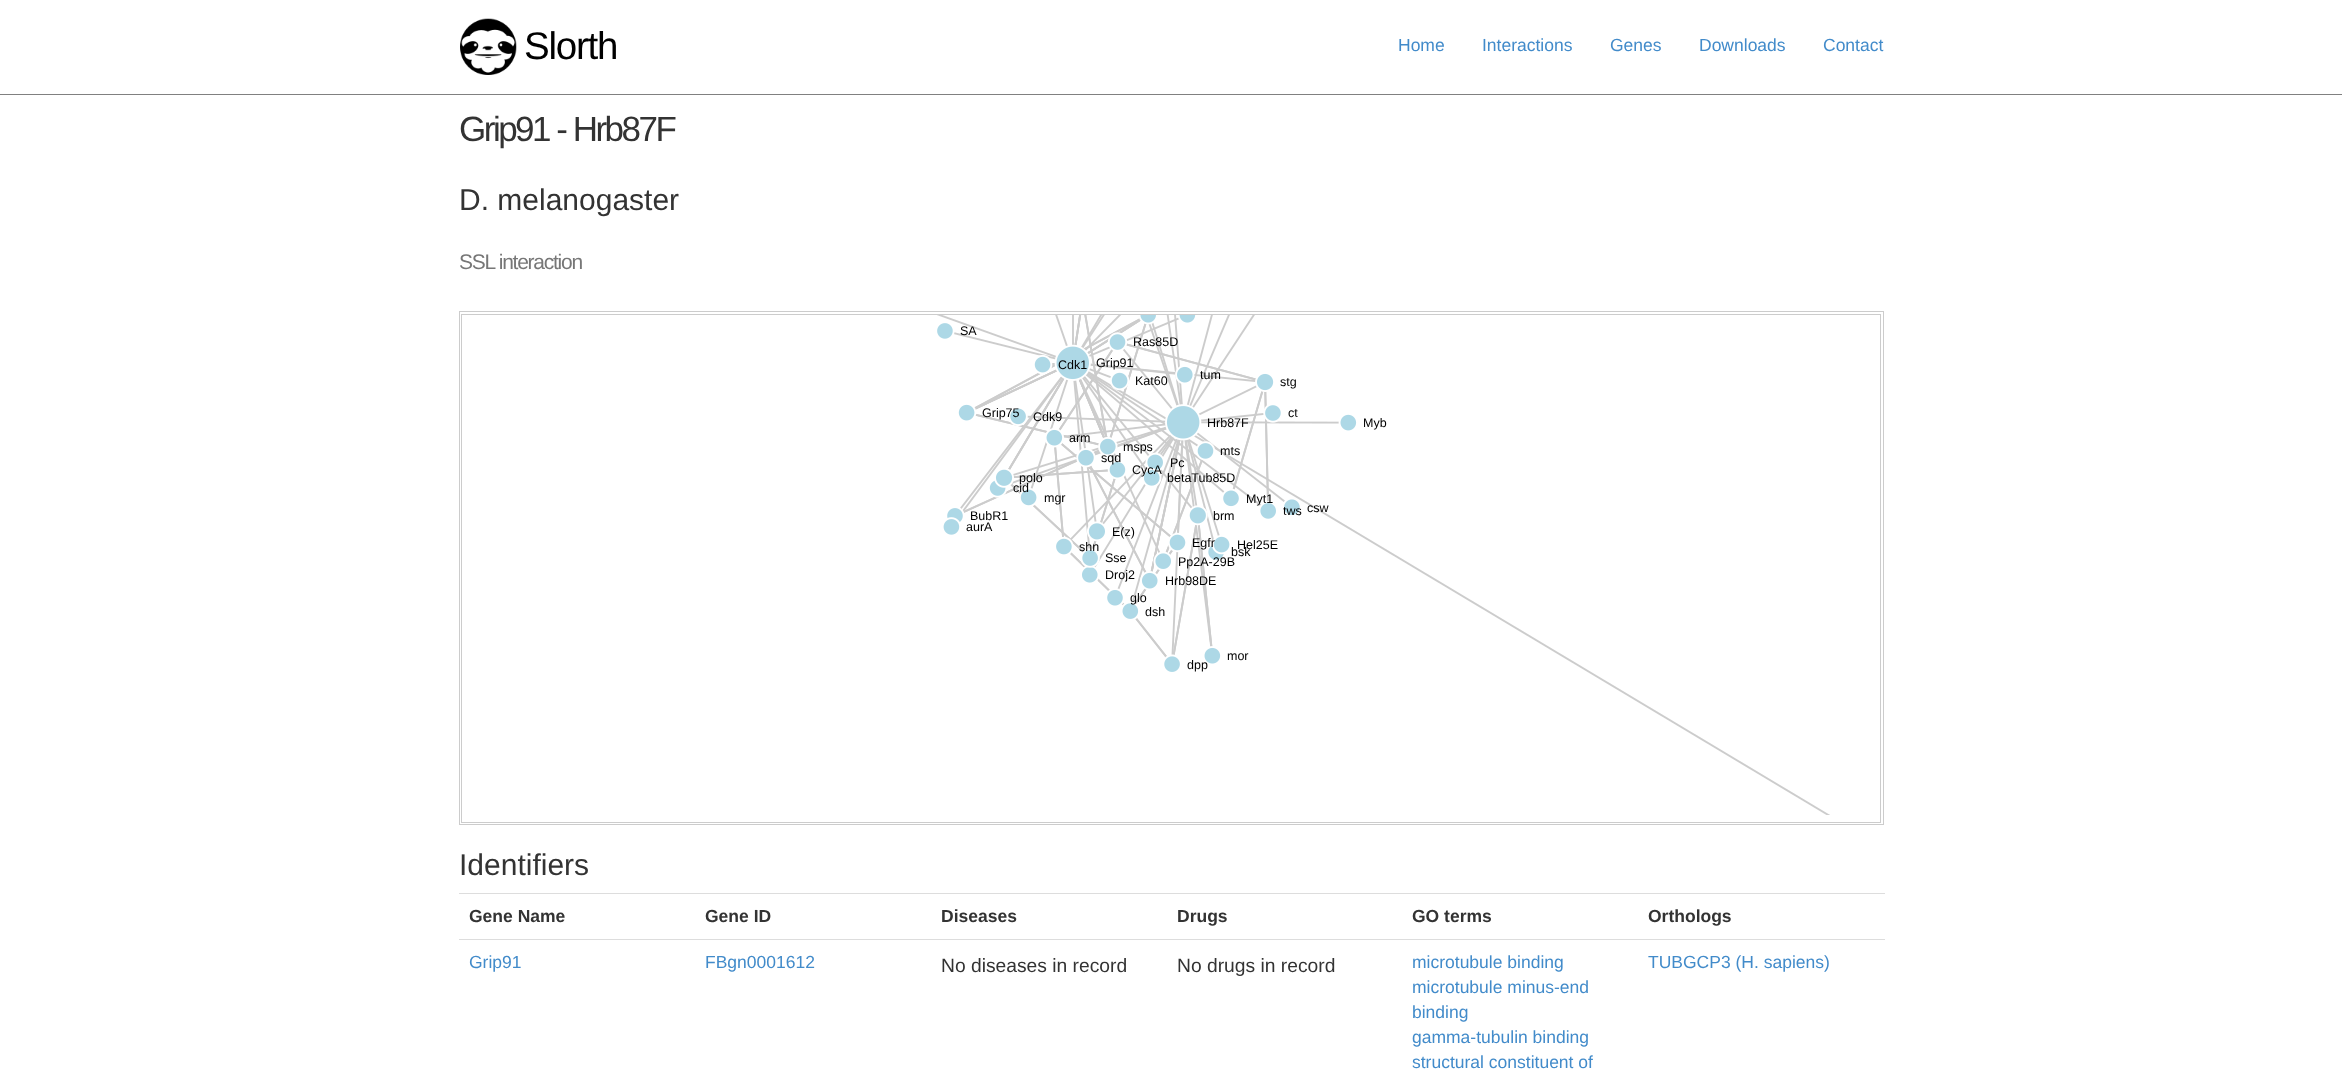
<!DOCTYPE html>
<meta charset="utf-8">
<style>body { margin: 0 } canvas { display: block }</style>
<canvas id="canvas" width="2342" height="1089"></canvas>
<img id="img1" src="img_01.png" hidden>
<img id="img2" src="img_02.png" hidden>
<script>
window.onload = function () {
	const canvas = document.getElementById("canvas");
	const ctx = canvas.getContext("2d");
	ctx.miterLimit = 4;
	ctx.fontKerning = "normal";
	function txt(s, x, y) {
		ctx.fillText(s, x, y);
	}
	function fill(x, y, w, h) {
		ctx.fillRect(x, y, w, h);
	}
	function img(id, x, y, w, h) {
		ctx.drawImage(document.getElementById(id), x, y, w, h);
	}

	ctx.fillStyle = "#FFFFFF";
	fill(0, 0, 2342, 1089);
	ctx.fillStyle = "#808080";
	fill(0, 94, 2342, 1);
	img("img1", 460, 18, 57, 57);
	ctx.strokeStyle = "#CCCCCC";
	ctx.strokeRect(459.5, 311.5, 1424, 513);
	ctx.strokeRect(461.5, 314.5, 1419, 508);
	img("img2", 937, 315, 893, 500);
	ctx.fillStyle = "#DDDDDD";
	fill(459, 893, 1426, 1);
	fill(459, 939, 1426, 1);
	ctx.letterSpacing = "-1.25px";
	ctx.font = "38.5px Liberation Sans";
	ctx.fillStyle = "#000000";
	txt("Slorth", 524, 59);
	ctx.letterSpacing = "0px";
	ctx.font = "17.5px Liberation Sans";
	ctx.fillStyle = "#428BCA";
	txt("Home", 1398, 51);
	txt("Interactions", 1482, 51);
	txt("Genes", 1610, 51);
	txt("Downloads", 1699, 51);
	txt("Contact", 1823, 51);
	ctx.letterSpacing = "-2.5px";
	ctx.font = "35px Liberation Sans";
	ctx.fillStyle = "#333333";
	txt("Grip91 - Hrb87F", 459, 141);
	ctx.letterSpacing = "0px";
	ctx.font = "30px Liberation Sans";
	txt("D. melanogaster", 459, 210);
	ctx.letterSpacing = "-1.25px";
	ctx.font = "21px Liberation Sans";
	ctx.fillStyle = "#777777";
	txt("SSL interaction", 459, 269);
	ctx.letterSpacing = "0px";
	ctx.font = "12.5px Liberation Sans";
	ctx.fillStyle = "#000000";
	txt("SA", 960, 335);
	txt("Ras85D", 1133, 346);
	txt("Cdk1", 1058, 369);
	txt("Grip91", 1096, 367);
	txt("tum", 1200, 379);
	txt("Kat60", 1135, 385);
	txt("stg", 1280, 386);
	txt("Grip75", 982, 417);
	txt("Cdk9", 1033, 421);
	txt("Hrb87F", 1207, 427);
	txt("ct", 1288, 417);
	txt("Myb", 1363, 427);
	txt("arm", 1069, 442);
	txt("msps", 1123, 451);
	txt("mts", 1220, 455);
	txt("sqd", 1101, 462);
	txt("Pc", 1170, 467);
	txt("polo", 1019, 482);
	txt("CycA", 1132, 474);
	txt("betaTub85D", 1167, 482);
	txt("cid", 1013, 492);
	txt("mgr", 1044, 502);
	txt("Myt1", 1246, 503);
	txt("BubR1", 970, 520);
	txt("brm", 1213, 520);
	txt("tws", 1283, 515);
	txt("csw", 1307, 512);
	txt("aurA", 966, 531);
	txt("E(z)", 1112, 536);
	txt("shn", 1079, 551);
	txt("Egfr", 1192, 547);
	txt("Hel25E", 1237, 549);
	txt("bsk", 1231, 556);
	txt("Sse", 1105, 562);
	txt("Pp2A-29B", 1178, 566);
	txt("Droj2", 1105, 579);
	txt("Hrb98DE", 1165, 585);
	txt("glo", 1130, 602);
	txt("dsh", 1145, 616);
	txt("mor", 1227, 660);
	txt("dpp", 1187, 669);
	ctx.font = "30px Liberation Sans";
	ctx.fillStyle = "#333333";
	txt("Identifiers", 459, 875);
	ctx.font = "bold 17.5px Liberation Sans";
	txt("Gene Name", 469, 922);
	txt("Gene ID", 705, 922);
	txt("Diseases", 941, 922);
	txt("Drugs", 1177, 922);
	txt("GO terms", 1412, 922);
	txt("Orthologs", 1648, 922);
	ctx.font = "17.5px Liberation Sans";
	ctx.fillStyle = "#428BCA";
	txt("Grip91", 469, 968);
	txt("FBgn0001612", 705, 968);
	ctx.font = "19.25px Liberation Sans";
	ctx.fillStyle = "#333333";
	txt("No diseases in record", 941, 972);
	txt("No drugs in record", 1177, 972);
	ctx.font = "17.5px Liberation Sans";
	ctx.fillStyle = "#428BCA";
	txt("microtubule binding", 1412, 968);
	txt("microtubule minus-end", 1412, 993);
	txt("binding", 1412, 1018);
	txt("gamma-tubulin binding", 1412, 1043);
	txt("structural constituent of", 1412, 1068);
	txt("TUBGCP3 (H. sapiens)", 1648, 968);
};
</script>
